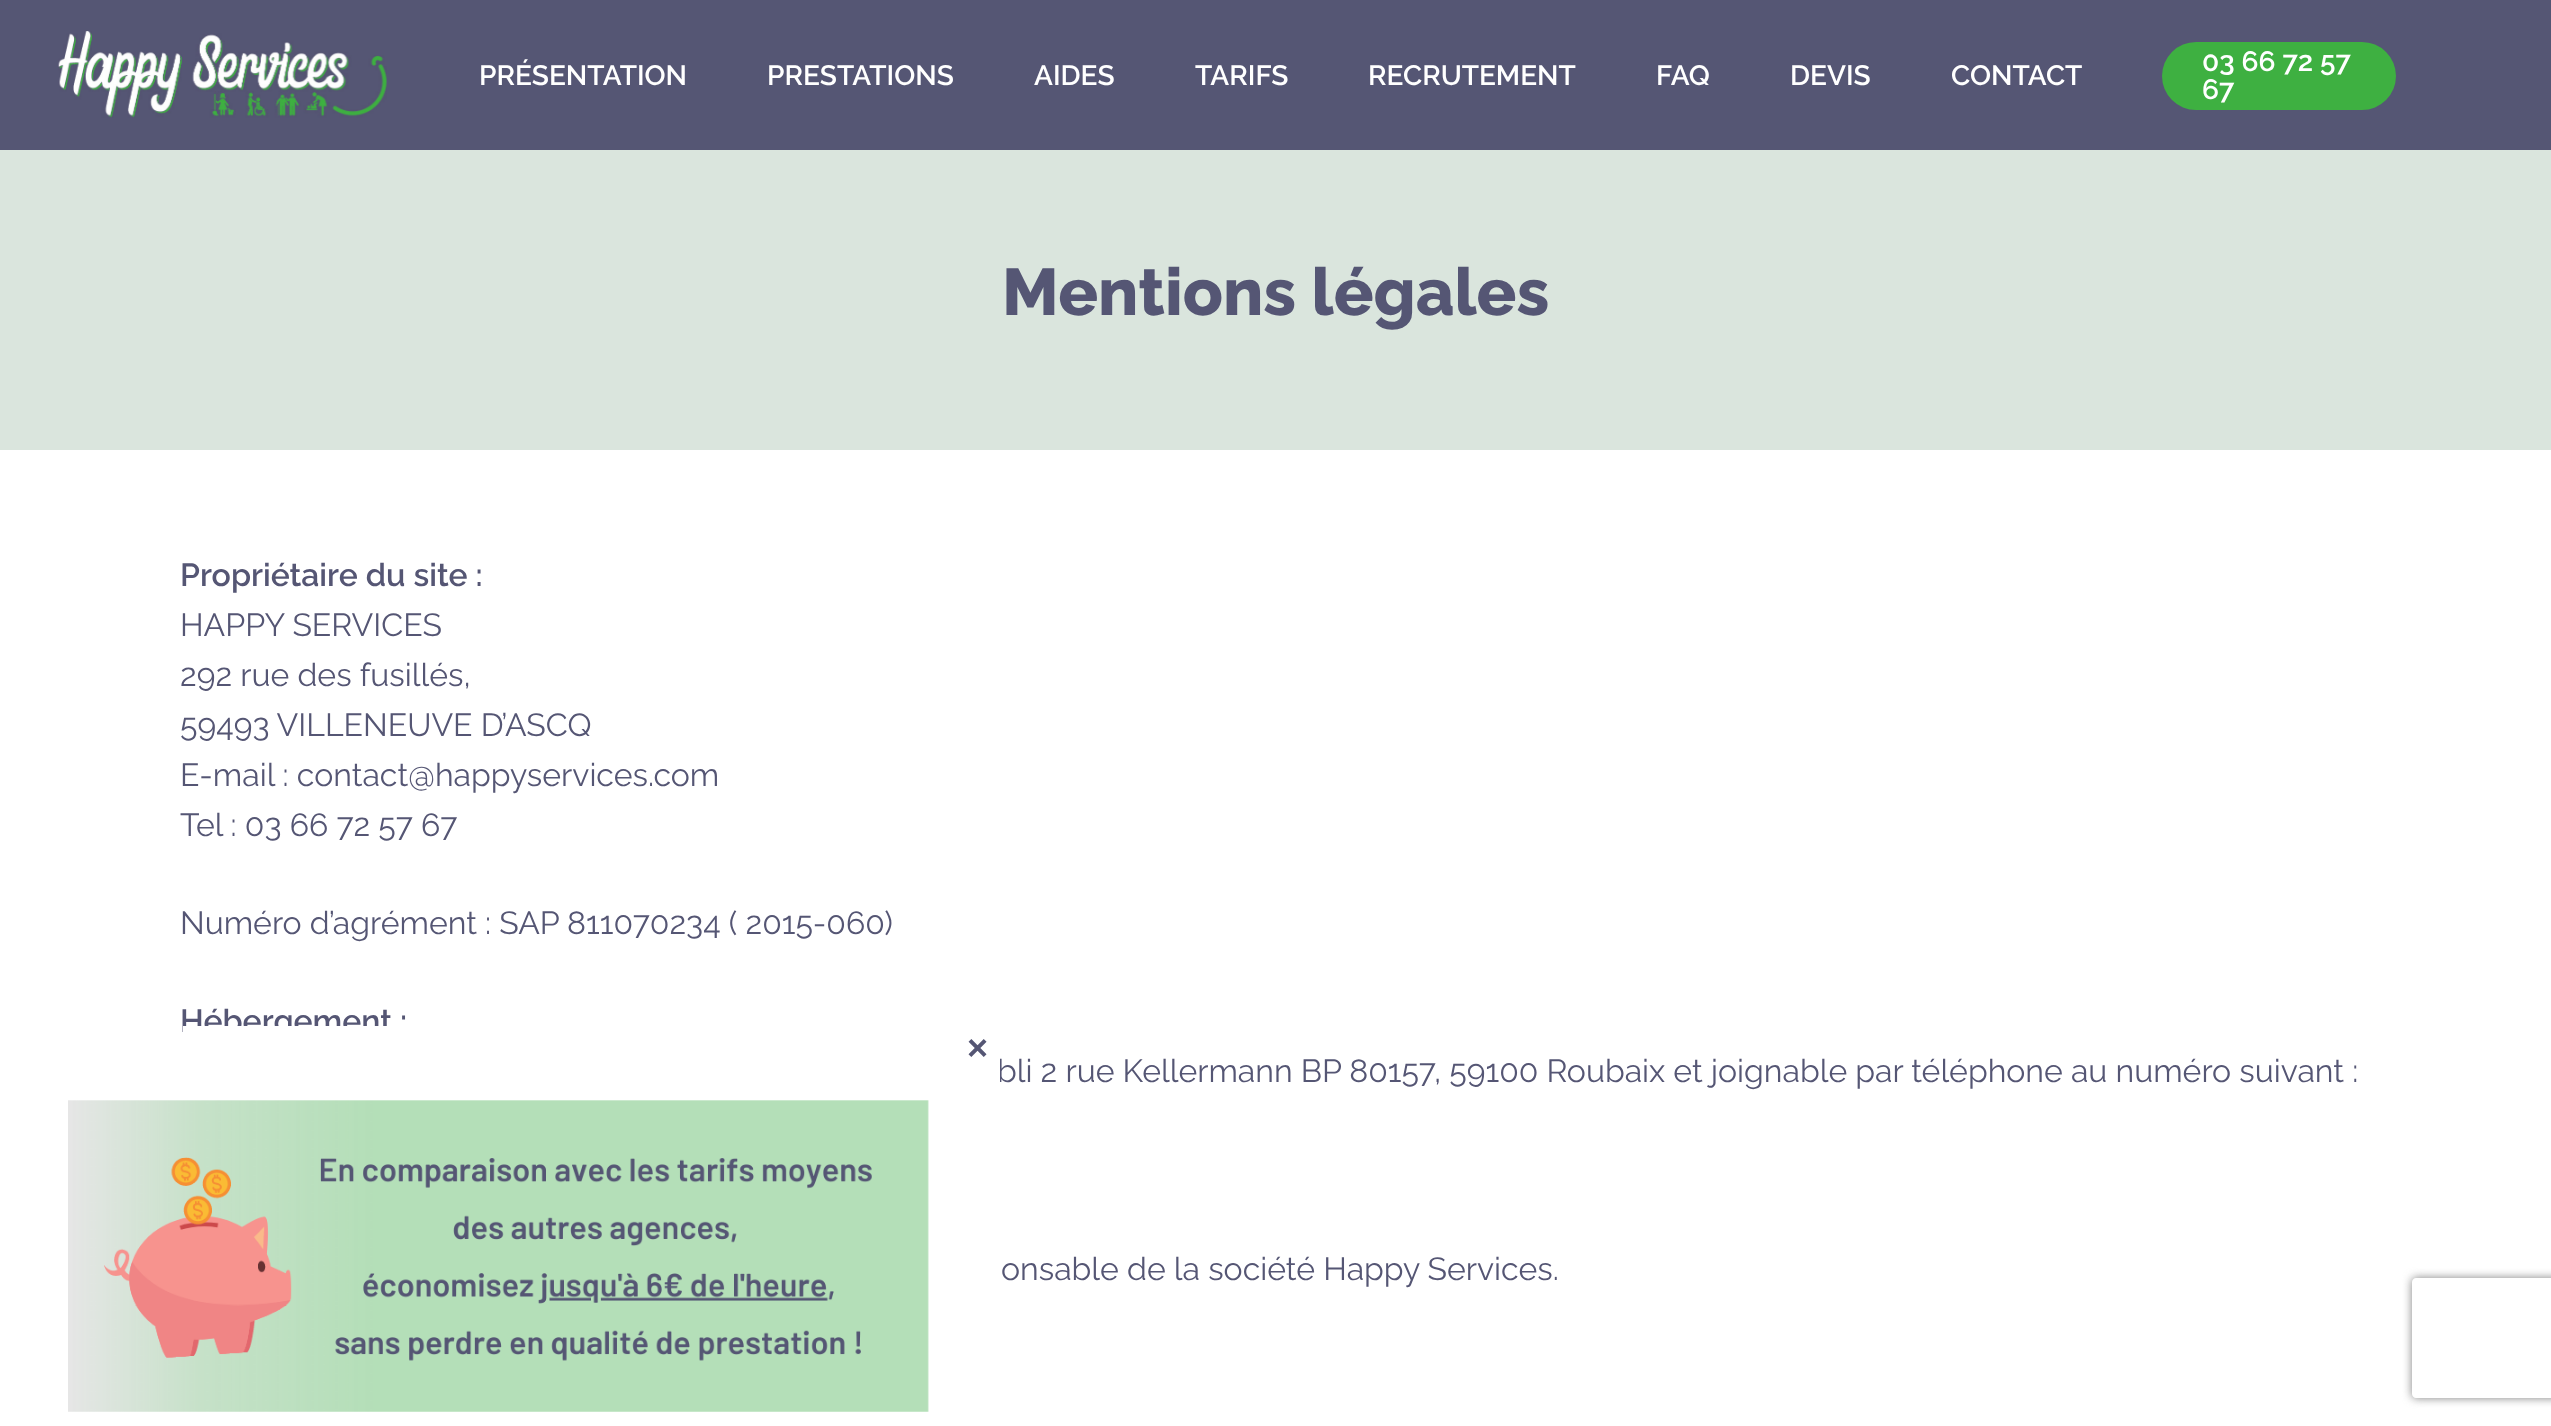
<!DOCTYPE html>
<meta charset="utf-8">
<style>body { margin: 0 } canvas { display: block }</style>
<canvas id="canvas" width="2551" height="1426"></canvas>
<img id="img1" src="img_01.png" hidden>
<img id="img2" src="img_02.png" hidden>
<script>
window.onload = function () {
	const canvas = document.getElementById("canvas");
	const ctx = canvas.getContext("2d");
	ctx.miterLimit = 4;
	ctx.fontKerning = "normal";
	function txt(s, x, y) {
		ctx.fillText(s, x, y);
	}
	function fill(x, y, w, h) {
		ctx.fillRect(x, y, w, h);
	}
	function round(x, y, w, h, r) {
		ctx.beginPath();
		ctx.roundRect(x, y, w, h, r);
		ctx.fill();
	}
	function img(id, x, y, w, h) {
		ctx.drawImage(document.getElementById(id), x, y, w, h);
	}

	ctx.fillStyle = "#FFFFFF";
	fill(0, 0, 2551, 1426);
	ctx.fillStyle = "#555674";
	fill(0, 0, 2551, 150);
	img("img1", 58, 31, 329, 87);
	ctx.fillStyle = "#3EB041";
	round(2162, 42, 234, 68, 34);
	ctx.fillStyle = "#DAE5DD";
	fill(0, 150, 2551, 300);
	img("img2", 68, 1100, 861, 312);
	ctx.save();
	ctx.beginPath();
	ctx.moveTo(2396, 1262);
	ctx.lineTo(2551, 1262);
	ctx.lineTo(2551, 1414);
	ctx.lineTo(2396, 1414);
	ctx.closePath();
	ctx.moveTo(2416, 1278);
	ctx.lineTo(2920, 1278);
	ctx.bezierCurveTo(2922, 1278, 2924, 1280, 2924, 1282);
	ctx.lineTo(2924, 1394);
	ctx.bezierCurveTo(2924, 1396, 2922, 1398, 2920, 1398);
	ctx.lineTo(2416, 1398);
	ctx.bezierCurveTo(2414, 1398, 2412, 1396, 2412, 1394);
	ctx.lineTo(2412, 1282);
	ctx.bezierCurveTo(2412, 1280, 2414, 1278, 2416, 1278);
	ctx.closePath();
	ctx.clip("evenodd");
	ctx.fillStyle = "#808080";
	ctx.filter = "blur(5px)";
	ctx.beginPath();
	ctx.roundRect(2412, 1278, 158, 120, 4);
	ctx.fill();
	ctx.filter = "none";
	ctx.restore();
	ctx.font = "600 28px Raleway";
	ctx.fillStyle = "#FFFFFF";
	txt("PRÉSENTATION", 479, 85);
	txt("PRESTATIONS", 767, 85);
	txt("AIDES", 1034, 85);
	txt("TARIFS", 1195, 85);
	txt("RECRUTEMENT", 1368, 85);
	txt("FAQ", 1656, 85);
	txt("DEVIS", 1790, 85);
	txt("CONTACT", 1951, 85);
	txt("03 66 72 57", 2202, 71);
	txt("67", 2202, 99);
	ctx.font = "800 66px Raleway";
	ctx.fillStyle = "#555674";
	txt("Mentions légales", 1002, 315);
	ctx.font = "600 32px Raleway";
	txt("Propriétaire du site :", 180, 586);
	ctx.font = "32px Raleway";
	txt("HAPPY SERVICES", 180, 636);
	txt("292 rue des fusillés,", 180, 686);
	txt("59493 VILLENEUVE D’ASCQ", 180, 736);
	txt("E-mail : contact@happyservices.com", 180, 786);
	txt("Tel : 03 66 72 57 67", 180, 836);
	txt("Numéro d’agrément : SAP 811070234 ( 2015-060)", 180, 934);
	ctx.font = "600 32px Raleway";
	txt("Hébergement :", 180, 1032);
	ctx.font = "32px Raleway";
	txt("bli 2 rue Kellermann BP 80157, 59100 Roubaix et joignable par téléphone au numéro suivant :", 997, 1082);
	txt("onsable de la société Happy Services.", 1001, 1280);
	ctx.fillStyle = "#FFFFFF";
	fill(183, 1026, 817, 56);
	ctx.font = "bold 36px Liberation Sans";
	ctx.fillStyle = "#555674";
	txt("×", 967, 1060);
};
</script>
